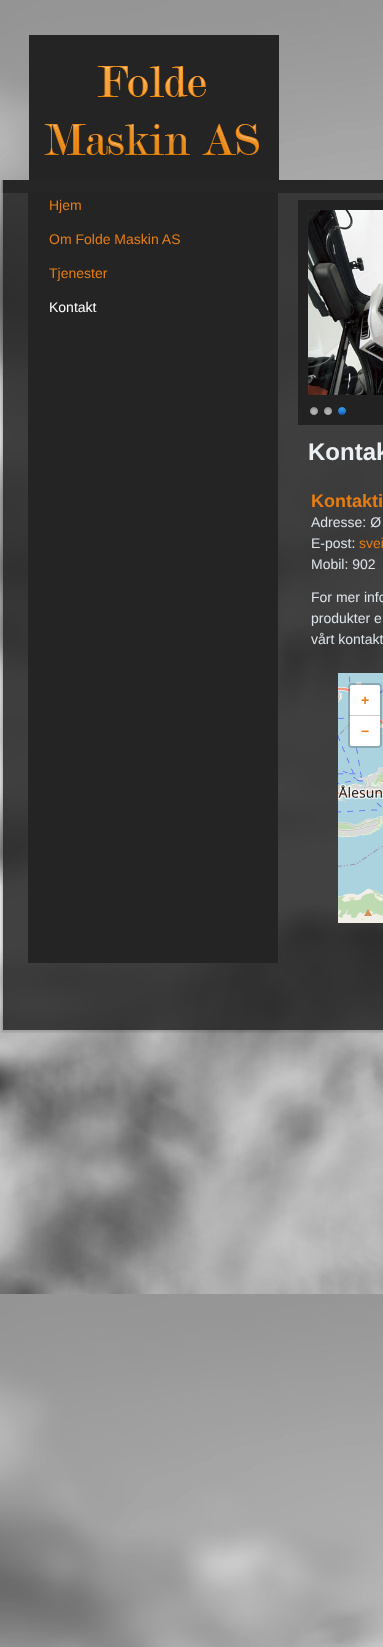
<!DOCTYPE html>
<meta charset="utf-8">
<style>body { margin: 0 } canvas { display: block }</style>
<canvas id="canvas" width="383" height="1647"></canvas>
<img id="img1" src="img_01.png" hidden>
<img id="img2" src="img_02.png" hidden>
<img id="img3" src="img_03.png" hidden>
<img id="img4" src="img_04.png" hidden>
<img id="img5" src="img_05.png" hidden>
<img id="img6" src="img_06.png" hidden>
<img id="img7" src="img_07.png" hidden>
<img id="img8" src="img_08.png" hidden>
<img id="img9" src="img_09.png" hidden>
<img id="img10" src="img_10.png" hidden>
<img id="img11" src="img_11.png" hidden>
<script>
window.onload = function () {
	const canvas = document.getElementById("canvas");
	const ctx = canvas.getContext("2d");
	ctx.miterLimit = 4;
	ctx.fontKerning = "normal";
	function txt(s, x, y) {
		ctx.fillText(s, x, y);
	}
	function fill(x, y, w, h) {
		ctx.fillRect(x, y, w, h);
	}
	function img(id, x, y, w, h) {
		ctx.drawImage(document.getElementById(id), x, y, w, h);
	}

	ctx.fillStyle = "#FFFFFF";
	fill(0, 0, 383, 1647);
	img("img1", 0, 0, 383, 1647);
	img("img2", 29, 35, 250, 145);
	img("img3", 1, 180, 382, 853);
	img("img4", 1, 180, 382, 13);
	img("img5", 1, 193, 382, 827);
	ctx.fillStyle = "#242424";
	fill(28, 193, 250, 770);
	ctx.fillStyle = "#222222";
	fill(298, 200, 85, 225);
	img("img6", 308, 210, 75, 185);
	img("img7", 310, 407, 8, 8);
	img("img7", 324, 407, 8, 8);
	img("img8", 338, 407, 8, 8);
	img("img9", 338, 673, 23, 245);
	img("img10", 361, 673, 22, 245);
	ctx.fillStyle = "#F2EFE9";
	fill(338, 918, 23, 5);
	img("img11", 361, 918, 22, 5);
	ctx.beginPath();
	ctx.roundRect(349, 684, 32, 63, 3);
	ctx.strokeStyle = "rgba(0, 0, 0, 0.2)";
	ctx.lineWidth = 2;
	ctx.stroke();
	ctx.fillStyle = "#FFFFFF";
	ctx.beginPath();
	ctx.roundRect(350, 685, 30, 31, [2, 2, 0, 0]);
	ctx.fill();
	ctx.fillStyle = "#CCCCCC";
	fill(350, 715, 30, 1);
	ctx.fillStyle = "#FFFFFF";
	ctx.beginPath();
	ctx.roundRect(350, 716, 30, 30, [0, 0, 2, 2]);
	ctx.fill();
	ctx.font = "14px Liberation Sans";
	ctx.fillStyle = "#E77D13";
	txt("Hjem", 49, 210);
	txt("Om Folde Maskin AS", 49, 244);
	txt("Tjenester", 49, 278);
	ctx.fillStyle = "#FFFFFF";
	txt("Kontakt", 49, 312);
	ctx.font = "bold 24px Liberation Sans";
	ctx.fillStyle = "#ECF0F4";
	txt("Kontak", 308, 460);
	ctx.font = "bold 18px Liberation Sans";
	ctx.fillStyle = "#E77D13";
	txt("Kontakti", 311, 507);
	ctx.font = "14px Liberation Sans";
	ctx.fillStyle = "#DCE3EA";
	txt("Adresse: Ø", 311, 527);
	txt("E-post:", 311, 548);
	ctx.fillStyle = "#E77D13";
	txt("svei", 359, 548);
	ctx.fillStyle = "#DCE3EA";
	txt("Mobil: 902", 311, 569);
	txt("For mer info", 311, 602);
	txt("produkter e", 311, 623);
	txt("vårt kontakt", 311, 644);
	ctx.font = "bold 14px Liberation Sans";
	ctx.fillStyle = "#E77D13";
	txt("+", 361, 705);
	txt("−", 361, 736);
};
</script>
